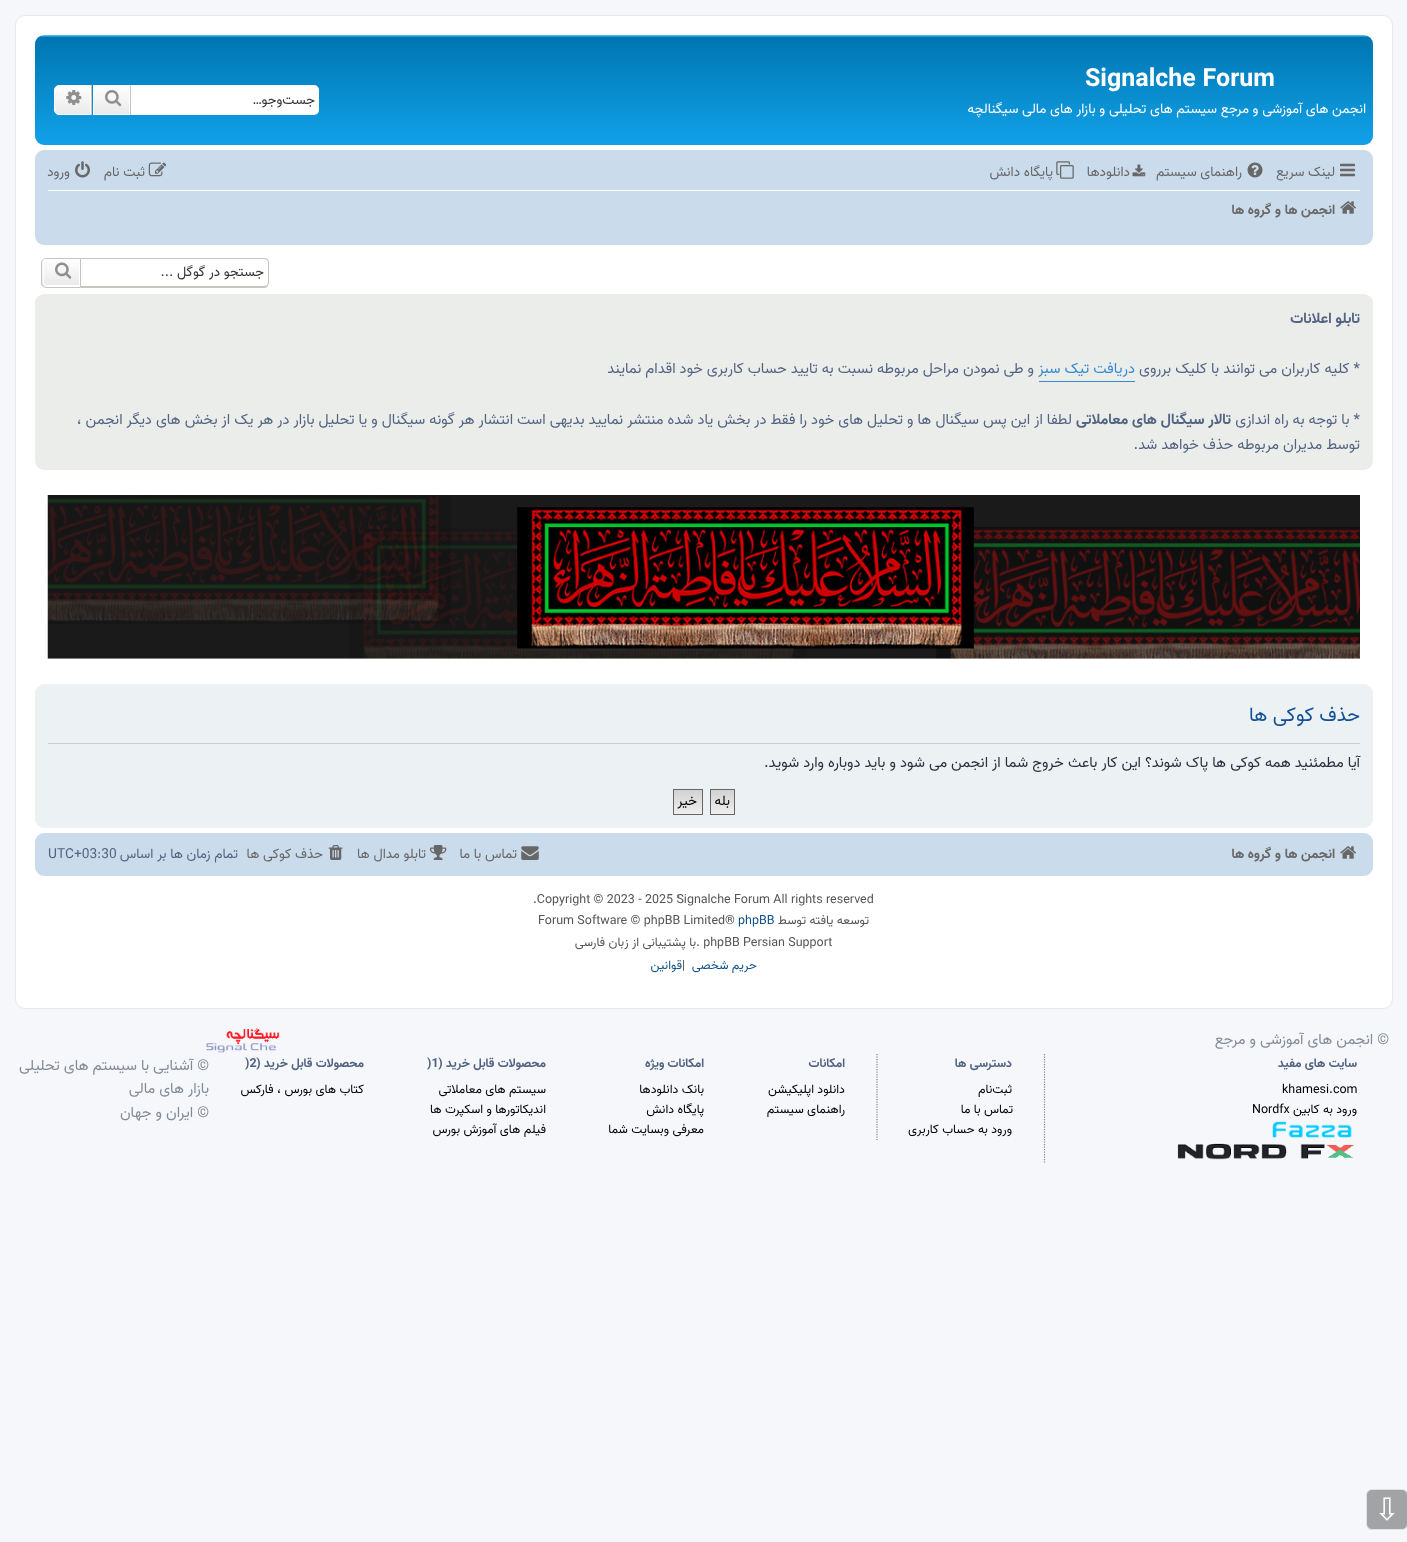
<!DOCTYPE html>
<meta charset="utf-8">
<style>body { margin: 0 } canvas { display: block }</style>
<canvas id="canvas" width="1407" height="1542"></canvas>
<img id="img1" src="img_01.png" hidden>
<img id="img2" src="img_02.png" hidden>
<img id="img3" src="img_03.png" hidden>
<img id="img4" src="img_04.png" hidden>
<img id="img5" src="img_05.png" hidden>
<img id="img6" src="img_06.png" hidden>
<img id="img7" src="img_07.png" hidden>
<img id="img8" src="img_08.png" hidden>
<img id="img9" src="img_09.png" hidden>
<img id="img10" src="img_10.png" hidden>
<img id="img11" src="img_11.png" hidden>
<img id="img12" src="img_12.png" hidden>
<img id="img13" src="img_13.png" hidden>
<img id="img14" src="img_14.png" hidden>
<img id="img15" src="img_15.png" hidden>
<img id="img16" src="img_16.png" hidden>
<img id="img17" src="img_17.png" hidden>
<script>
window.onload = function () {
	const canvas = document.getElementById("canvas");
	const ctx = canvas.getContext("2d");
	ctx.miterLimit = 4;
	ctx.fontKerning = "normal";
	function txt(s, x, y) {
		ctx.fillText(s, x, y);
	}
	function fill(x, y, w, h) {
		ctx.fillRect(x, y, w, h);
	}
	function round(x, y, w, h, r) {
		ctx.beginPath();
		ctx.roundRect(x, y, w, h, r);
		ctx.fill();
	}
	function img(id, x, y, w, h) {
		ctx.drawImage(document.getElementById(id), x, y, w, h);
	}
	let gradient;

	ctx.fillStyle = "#F5F7FA";
	fill(0, 0, 1407, 1542);
	ctx.fillStyle = "#FFFFFF";
	ctx.beginPath();
	ctx.roundRect(15.5, 15.5, 1377, 993, 9.5);
	ctx.fill();
	ctx.strokeStyle = "#E6E9ED";
	ctx.stroke();
	gradient = ctx.createLinearGradient(704, 35, 704, 150);
	gradient.addColorStop(0, "#6ACEFF");
	gradient.addColorStop(0.02, "#0076B1");
	gradient.addColorStop(1, "#12A3EB");
	ctx.fillStyle = gradient;
	round(35, 35, 1338, 110, 9);
	ctx.fillStyle = "#FFFFFF";
	ctx.beginPath();
	ctx.roundRect(131, 85, 188, 30, [0, 5, 5, 0]);
	ctx.fill();
	gradient = ctx.createLinearGradient(111, 85, 111, 115);
	gradient.addColorStop(0, "#FFFFFF");
	gradient.addColorStop(1, "#E9E9E9");
	ctx.fillStyle = gradient;
	fill(94, 86, 35, 28);
	ctx.strokeStyle = "#FFFFFF";
	ctx.strokeRect(93.5, 85.5, 36, 29);
	ctx.fillStyle = "#C7C3BF";
	fill(130, 85, 1, 30);
	fill(91, 85, 1, 30);
	img("img1", 105, 90, 17, 17);
	gradient = ctx.createLinearGradient(73, 85, 73, 115);
	gradient.addColorStop(0, "#FFFFFF");
	gradient.addColorStop(1, "#E9E9E9");
	ctx.fillStyle = gradient;
	ctx.beginPath();
	ctx.roundRect(54.5, 85.5, 36, 29, [4.5, 0, 0, 4.5]);
	ctx.fill();
	ctx.stroke();
	img("img2", 66, 90, 16, 15);
	ctx.fillStyle = "#CADCEB";
	round(35, 150, 1338, 95, 9);
	img("img3", 1340, 163, 15, 14);
	img("img4", 1247, 162, 16, 16);
	img("img5", 1132, 164, 14, 13);
	img("img6", 1056, 161, 18, 18);
	img("img7", 148, 162, 19, 15);
	img("img8", 75, 161, 15, 17);
	ctx.fillStyle = "#FFFFFF";
	fill(48, 190, 1312, 1);
	img("img9", 1340, 201, 16, 13);
	ctx.fillStyle = "#C7C3BF";
	ctx.beginPath();
	ctx.moveTo(81, 258);
	ctx.lineTo(264, 258);
	ctx.bezierCurveTo(267, 258, 269, 260, 269, 262);
	ctx.lineTo(269, 282);
	ctx.bezierCurveTo(269, 285, 267, 288, 264, 288);
	ctx.lineTo(81, 288);
	ctx.closePath();
	ctx.moveTo(81, 259);
	ctx.lineTo(264, 259);
	ctx.bezierCurveTo(266, 259, 268, 260, 268, 262);
	ctx.lineTo(268, 282);
	ctx.bezierCurveTo(268, 285, 266, 286, 264, 286);
	ctx.lineTo(81, 286);
	ctx.closePath();
	ctx.fill("evenodd");
	ctx.save();
	ctx.beginPath();
	ctx.roundRect(41, 258, 40, 30, [5, 0, 0, 5]);
	ctx.clip();
	gradient = ctx.createLinearGradient(61, 259, 61, 286);
	gradient.addColorStop(0, "#FFFFFF");
	gradient.addColorStop(1, "#E9E9E9");
	ctx.fillStyle = gradient;
	fill(41, 259, 38, 27);
	ctx.restore();
	ctx.beginPath();
	ctx.roundRect(43.5, 259.5, 36, 26, [3.5, 0, 0, 3.5]);
	ctx.stroke();
	ctx.beginPath();
	ctx.roundRect(41.5, 258.5, 39, 29, [4.5, 0, 0, 4.5]);
	ctx.strokeStyle = "#C7C3BF";
	ctx.stroke();
	img("img10", 55, 262, 17, 17);
	ctx.fillStyle = "#EBEDEA";
	round(35, 294, 1338, 176, 9);
	ctx.fillStyle = "#368AD2";
	fill(1039, 381, 96, 1);
	img("img11", 47, 495, 1313, 164);
	ctx.fillStyle = "#ECF1F3";
	round(35, 684, 1338, 144, 9);
	ctx.fillStyle = "#CCCCCC";
	fill(48, 743, 1312, 1);
	gradient = ctx.createLinearGradient(723, 790, 723, 814);
	gradient.addColorStop(0, "#D2D2D2");
	gradient.addColorStop(1, "#EFEFEF");
	ctx.fillStyle = gradient;
	fill(711, 790, 23, 24);
	ctx.strokeStyle = "#666666";
	ctx.strokeRect(710.5, 789.5, 24, 25);
	gradient = ctx.createLinearGradient(688, 790, 688, 814);
	gradient.addColorStop(0, "#D2D2D2");
	gradient.addColorStop(1, "#EFEFEF");
	ctx.fillStyle = gradient;
	fill(674, 790, 28, 24);
	ctx.strokeRect(673.5, 789.5, 29, 25);
	ctx.fillStyle = "#CADCEB";
	round(35, 833, 1338, 43, 9);
	img("img9", 1340, 846, 16, 13);
	img("img12", 521, 846, 18, 14);
	img("img13", 430, 845, 17, 15);
	img("img14", 328, 845, 15, 15);
	img("img15", 206, 1028, 74, 25);
	ctx.beginPath();
	ctx.moveTo(1044.5, 1054);
	ctx.lineTo(1044.5, 1162.5);
	ctx.strokeStyle = "#888888";
	ctx.lineWidth = 1.2;
	ctx.setLineDash([1.25, 1.25]);
	ctx.stroke();
	img("img16", 1272, 1121, 80, 17);
	img("img17", 1177, 1143, 177, 17);
	ctx.beginPath();
	ctx.moveTo(877, 1054);
	ctx.lineTo(877, 1140);
	ctx.stroke();
	ctx.fillStyle = "#A2A3A5";
	ctx.beginPath();
	ctx.roundRect(1366.5, 1489.5, 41, 40, 5.5);
	ctx.fill();
	ctx.strokeStyle = "#E1E2E3";
	ctx.lineWidth = 1;
	ctx.setLineDash([]);
	ctx.stroke();
	ctx.font = "bold 25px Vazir";
	ctx.fillStyle = "#FFFFFF";
	txt("Signalche Forum", 1085, 86);
	ctx.direction = "rtl";
	ctx.font = "13.75px Vazir";
	txt("انجمن های آموزشی و مرجع سیستم های تحلیلی و بازار های مالی سیگنالچه", 1366, 113);
	ctx.fillStyle = "#333333";
	txt("جست‌وجو…", 315, 104);
	ctx.fillStyle = "#676767";
	txt("لینک سریع", 1335, 176);
	txt("راهنمای سیستم", 1242, 176);
	txt("دانلودها", 1130, 176);
	txt("پایگاه دانش", 1053, 176);
	txt("ثبت نام", 145, 176);
	txt("ورود", 70, 176);
	ctx.font = "bold 13.75px Vazir";
	txt("انجمن ها و گروه ها", 1335, 214);
	ctx.font = "13.75px Vazir";
	ctx.fillStyle = "#333333";
	txt("جستجو در گوگل ...", 264, 276);
	ctx.font = "bold 15px Vazir";
	ctx.fillStyle = "#536482";
	txt("تابلو اعلانات", 1360, 323);
	ctx.font = "15px Vazir";
	txt("* کلیه کاربران می توانند با کلیک برروی", 1360, 373);
	ctx.fillStyle = "#368AD2";
	txt("دریافت تیک سبز", 1135, 373);
	ctx.fillStyle = "#536482";
	txt("و طی نمودن مراحل مربوطه نسبت به تایید حساب کاربری خود اقدام نمایند", 1034, 373);
	txt("* با توجه به راه اندازی", 1360, 424);
	ctx.font = "bold 15px Vazir";
	txt("تالار سیگنال های معاملاتی", 1231, 424);
	ctx.font = "15px Vazir";
	txt("لطفا از این پس سیگنال ها و تحلیل های خود را فقط در بخش یاد شده منتشر نمایید بدیهی است انتشار هر گونه سیگنال و یا تحلیل بازار در هر یک از بخش های دیگر انجمن ،", 1072, 424);
	txt("توسط مدیران مربوطه حذف خواهد شد.", 1360, 449);
	ctx.font = "20px Vazir";
	ctx.fillStyle = "#115098";
	txt("حذف کوکی ها", 1360, 721);
	ctx.font = "15px Vazir";
	ctx.fillStyle = "#28313F";
	txt("آیا مطمئنید همه کوکی ها پاک شوند؟ این کار باعث خروج شما از انجمن می شود و باید دوباره وارد شوید.", 1360, 767);
	ctx.font = "13.75px Vazir";
	ctx.fillStyle = "#000000";
	txt("بله", 730, 805);
	txt("خیر", 697, 805);
	ctx.font = "bold 13.75px Vazir";
	ctx.fillStyle = "#676767";
	txt("انجمن ها و گروه ها", 1335, 858);
	ctx.font = "13.75px Vazir";
	txt("تماس با ما", 517, 858);
	txt("تابلو مدال ها", 426, 858);
	txt("حذف کوکی ها", 323, 858);
	ctx.fillStyle = "#536482";
	txt("تمام زمان ها بر اساس", 238, 858);
	ctx.direction = "ltr";
	txt("UTC+03:30", 48, 858);
	ctx.font = "12.5px Vazir";
	ctx.fillStyle = "#555555";
	txt(".Copyright © 2023 - 2025 ُSignalche Forum All rights reserved", 533, 903);
	ctx.direction = "rtl";
	txt("توسعه یافته توسط", 869, 924);
	ctx.direction = "ltr";
	ctx.fillStyle = "#105289";
	txt("phpBB", 738, 924);
	ctx.fillStyle = "#555555";
	txt("Forum Software © phpBB Limited®", 538, 924);
	txt(". phpBB Persian Support", 696, 946);
	ctx.direction = "rtl";
	txt("با پشتیبانی از زبان فارسی", 696, 946);
	ctx.fillStyle = "#105289";
	txt("حریم شخصی", 757, 969);
	ctx.direction = "ltr";
	ctx.fillStyle = "#555555";
	txt("|", 682, 969);
	ctx.direction = "rtl";
	ctx.fillStyle = "#105289";
	txt("قوانین", 682, 969);
	ctx.font = "15px Vazir";
	ctx.fillStyle = "#838B98";
	txt("© انجمن های آموزشی و مرجع", 1389, 1044);
	txt("© آشنایی با سیستم های تحلیلی", 209, 1070);
	txt("بازار های مالی", 209, 1093);
	txt("© ایران و جهان", 209, 1117);
	ctx.font = "bold 12.5px Vazir";
	ctx.fillStyle = "#536482";
	txt("سایت های مفید", 1357, 1067);
	ctx.direction = "ltr";
	ctx.font = "12.5px Vazir";
	ctx.fillStyle = "#000000";
	txt("khamesi.com", 1282, 1093);
	ctx.direction = "rtl";
	txt("ورود به کابین", 1357, 1113);
	ctx.direction = "ltr";
	txt("Nordfx", 1252, 1113);
	ctx.direction = "rtl";
	ctx.font = "bold 12.5px Vazir";
	ctx.fillStyle = "#536482";
	txt("دسترسی ها", 1012, 1067);
	ctx.font = "12.5px Vazir";
	ctx.fillStyle = "#000000";
	txt("ثبت‌نام", 1012, 1093);
	txt("تماس با ما", 1013, 1113);
	txt("ورود به حساب کاربری", 1012, 1133);
	ctx.font = "bold 12.5px Vazir";
	ctx.fillStyle = "#536482";
	txt("امکانات", 845, 1067);
	ctx.font = "12.5px Vazir";
	ctx.fillStyle = "#000000";
	txt("دانلود اپلیکیشن", 845, 1093);
	txt("راهنمای سیستم", 845, 1113);
	ctx.font = "bold 12.5px Vazir";
	ctx.fillStyle = "#536482";
	txt("امکانات ویژه", 704, 1067);
	ctx.font = "12.5px Vazir";
	ctx.fillStyle = "#000000";
	txt("بانک دانلودها", 704, 1093);
	txt("پایگاه دانش", 704, 1113);
	txt("معرفی وبسایت شما", 704, 1133);
	ctx.font = "bold 12.5px Vazir";
	ctx.fillStyle = "#536482";
	txt("محصولات قابل خرید (", 546, 1067);
	ctx.direction = "ltr";
	txt(")1", 427, 1067);
	ctx.direction = "rtl";
	ctx.font = "12.5px Vazir";
	ctx.fillStyle = "#000000";
	txt("سیستم های معاملاتی", 546, 1093);
	txt("اندیکاتورها و اسکپرت ها", 546, 1113);
	txt("فیلم های آموزش بورس", 546, 1133);
	ctx.font = "bold 12.5px Vazir";
	ctx.fillStyle = "#536482";
	txt("محصولات قابل خرید (", 364, 1067);
	ctx.direction = "ltr";
	txt(")2", 245, 1067);
	ctx.direction = "rtl";
	ctx.font = "12.5px Vazir";
	ctx.fillStyle = "#000000";
	txt("کتاب های بورس ، فارکس", 364, 1093);
	ctx.direction = "ltr";
	ctx.font = "31px DejaVu Sans";
	ctx.fillStyle = "#FFFFFF";
	txt("⇩", 1374, 1520);
};
</script>
